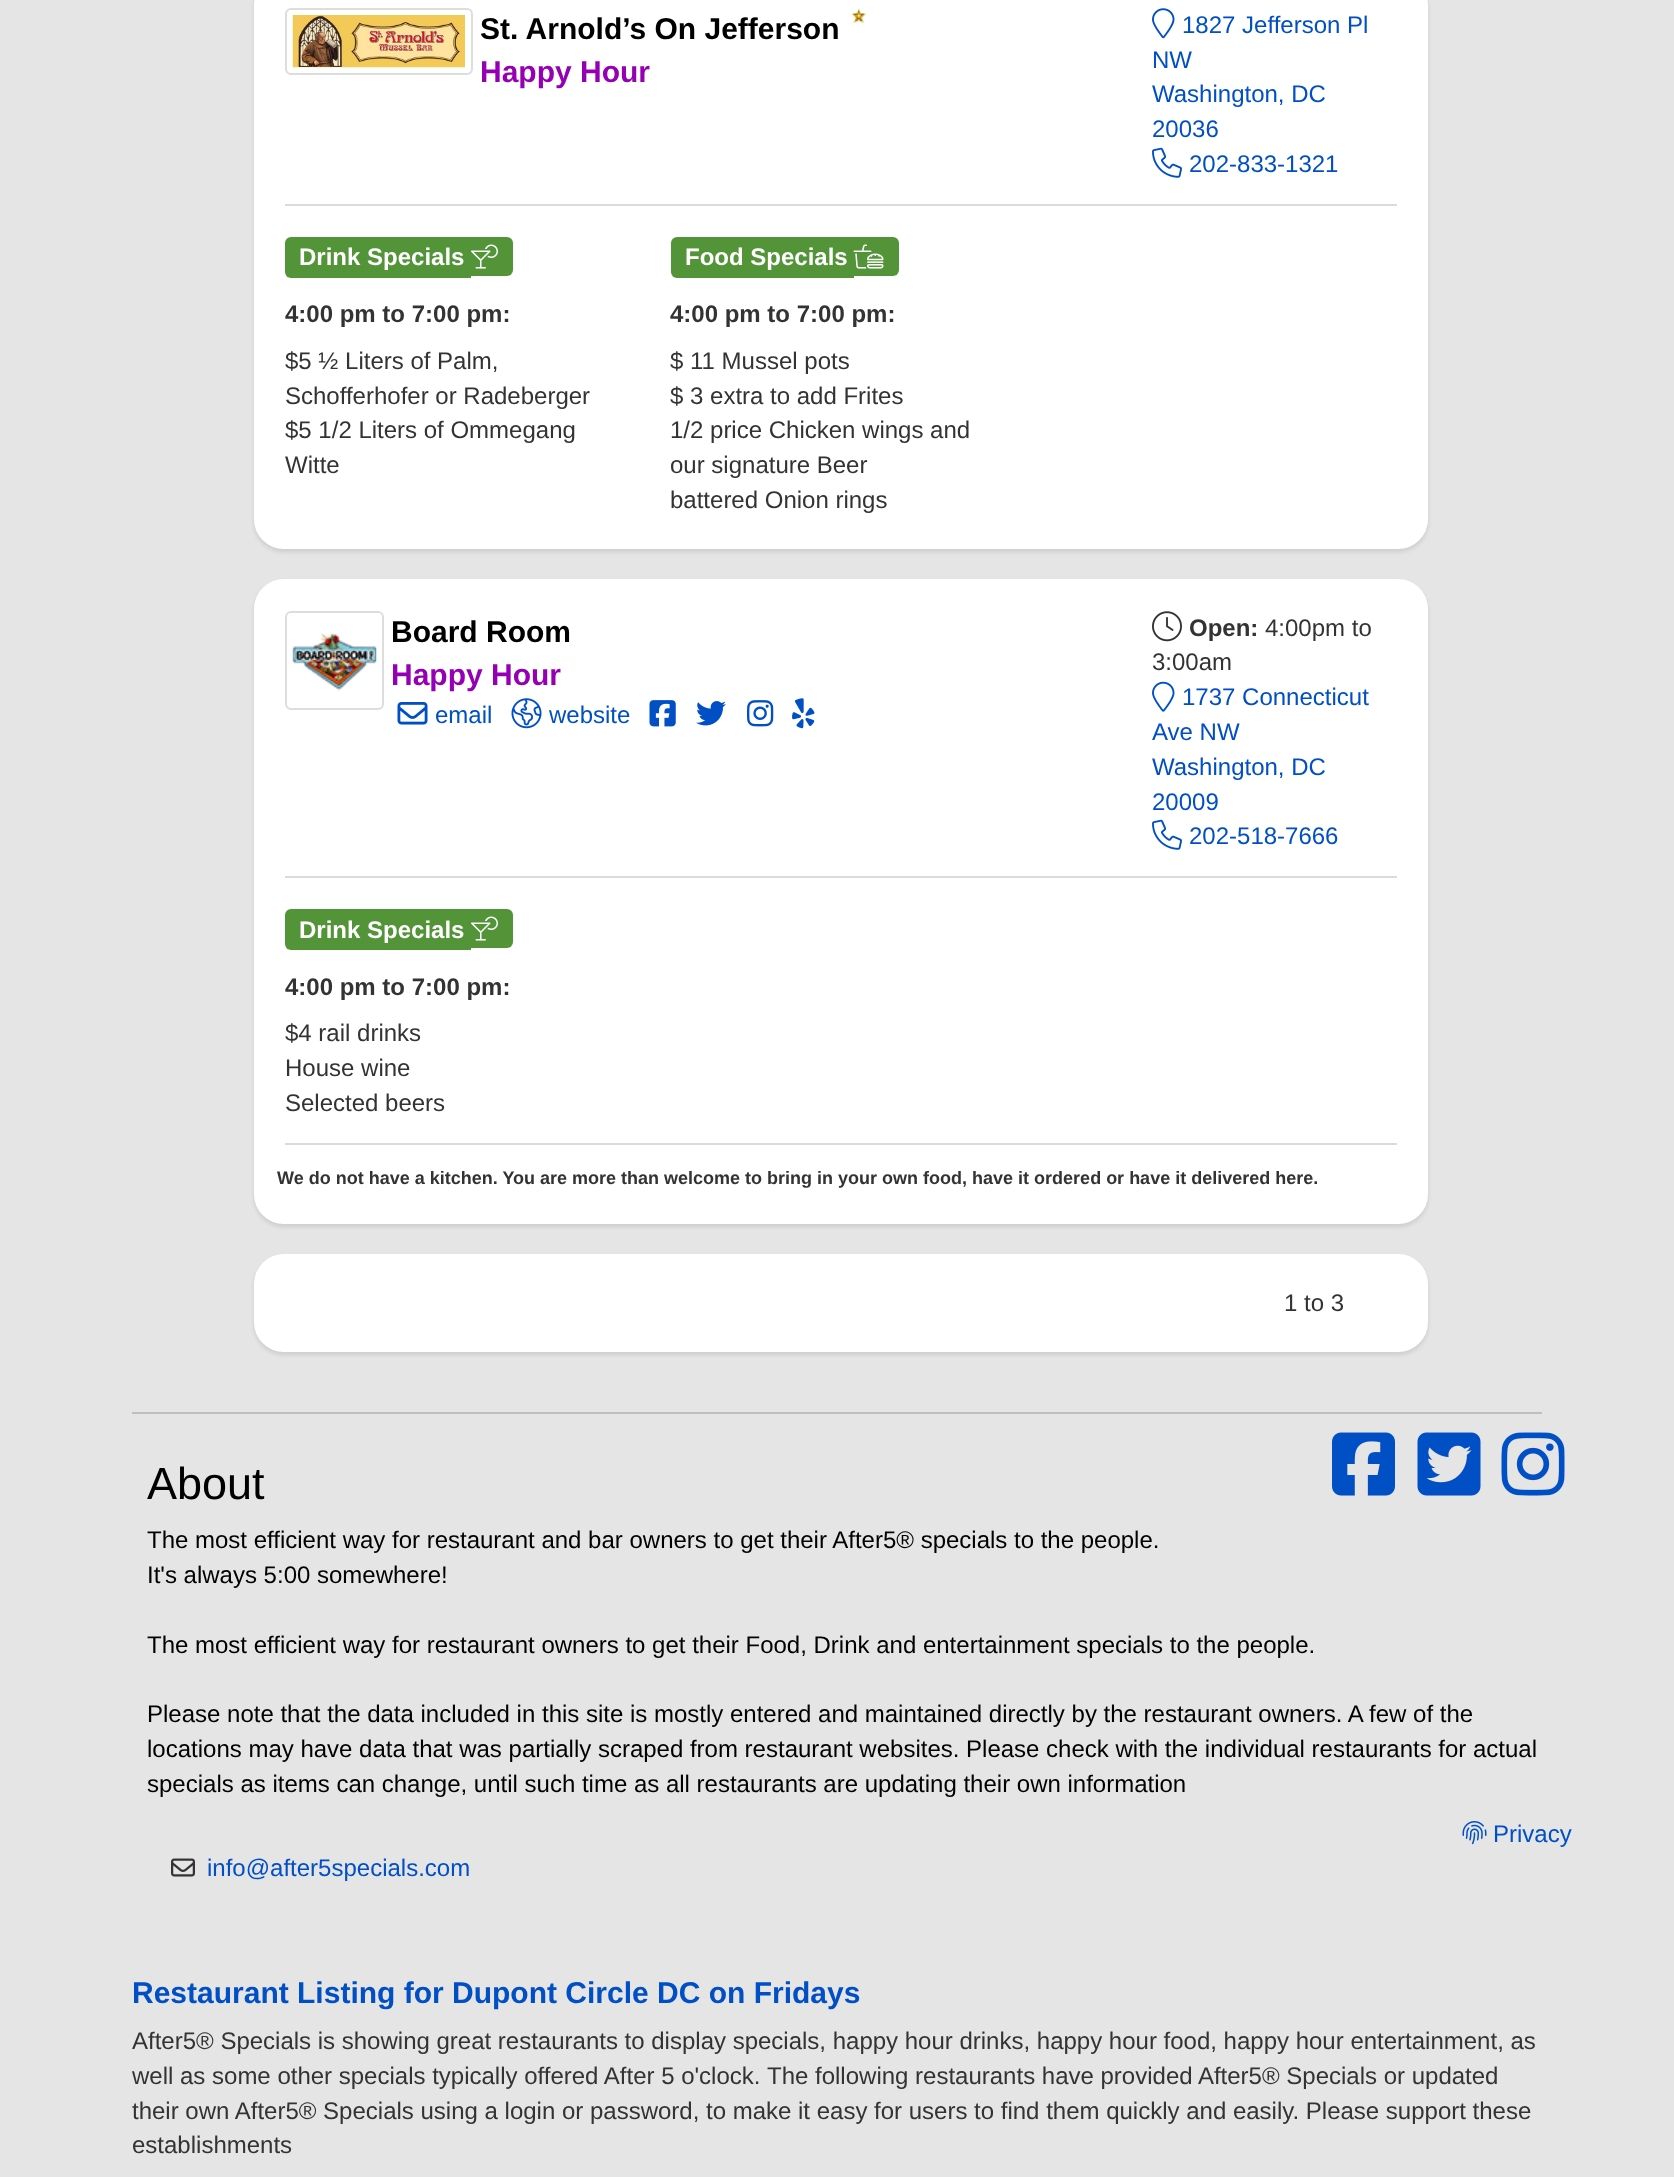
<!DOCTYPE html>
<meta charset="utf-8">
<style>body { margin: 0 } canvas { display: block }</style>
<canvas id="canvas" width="1674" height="2177"></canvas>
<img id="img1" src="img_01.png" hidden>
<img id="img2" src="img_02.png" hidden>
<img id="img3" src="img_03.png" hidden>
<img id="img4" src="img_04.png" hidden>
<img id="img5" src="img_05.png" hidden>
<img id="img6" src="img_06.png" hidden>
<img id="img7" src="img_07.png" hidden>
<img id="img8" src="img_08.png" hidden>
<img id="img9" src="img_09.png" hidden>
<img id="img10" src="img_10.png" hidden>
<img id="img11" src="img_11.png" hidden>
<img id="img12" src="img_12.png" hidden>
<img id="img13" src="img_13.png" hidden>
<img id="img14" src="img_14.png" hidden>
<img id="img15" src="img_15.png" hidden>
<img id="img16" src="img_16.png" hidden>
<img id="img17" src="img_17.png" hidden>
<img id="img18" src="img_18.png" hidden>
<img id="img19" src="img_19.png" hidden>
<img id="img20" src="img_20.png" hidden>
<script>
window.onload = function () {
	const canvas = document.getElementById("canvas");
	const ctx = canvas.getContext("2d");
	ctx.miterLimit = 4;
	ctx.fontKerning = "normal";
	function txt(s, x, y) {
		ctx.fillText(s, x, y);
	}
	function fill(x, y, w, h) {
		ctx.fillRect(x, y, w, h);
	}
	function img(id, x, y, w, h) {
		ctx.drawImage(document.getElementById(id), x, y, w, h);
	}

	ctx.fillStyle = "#E5E5E5";
	fill(0, 0, 1674, 2177);
	ctx.fillStyle = "rgba(0, 0, 0, 0.1)";
	ctx.filter = "blur(2px)";
	ctx.beginPath();
	ctx.roundRect(254, -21, 1174, 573, 30);
	ctx.fill();
	ctx.filter = "none";
	ctx.fillStyle = "#FFFFFF";
	ctx.beginPath();
	ctx.roundRect(255, -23, 1172, 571, 29);
	ctx.fill();
	ctx.strokeStyle = "#FFFFFF";
	ctx.lineWidth = 2;
	ctx.stroke();
	ctx.beginPath();
	ctx.roundRect(286, 9, 186, 65, 5);
	ctx.strokeStyle = "#DDDDDD";
	ctx.stroke();
	img("img1", 292, 15, 173, 53);
	img("img2", 851, 8, 15, 15);
	img("img3", 1152, 8, 23, 31);
	img("img4", 1152, 147, 30, 31);
	ctx.fillStyle = "#DADADA";
	fill(285, 204, 1112, 2);
	ctx.fillStyle = "#539438";
	ctx.beginPath();
	ctx.roundRect(285, 237, 186, 41, [6, 0, 0, 6]);
	ctx.fill();
	ctx.beginPath();
	ctx.roundRect(471, 237, 42, 39, [0, 6, 6, 0]);
	ctx.fill();
	img("img5", 471, 244, 27, 25);
	ctx.beginPath();
	ctx.roundRect(671, 237, 183, 41, [6, 0, 0, 6]);
	ctx.fill();
	ctx.beginPath();
	ctx.roundRect(854, 237, 45, 39, [0, 6, 6, 0]);
	ctx.fill();
	img("img6", 853, 244, 31, 25);
	ctx.fillStyle = "rgba(0, 0, 0, 0.1)";
	ctx.filter = "blur(2px)";
	ctx.beginPath();
	ctx.roundRect(254, 582, 1174, 645, 30);
	ctx.fill();
	ctx.filter = "none";
	ctx.fillStyle = "#FFFFFF";
	ctx.beginPath();
	ctx.roundRect(255, 580, 1172, 643, 29);
	ctx.fill();
	ctx.strokeStyle = "#FFFFFF";
	ctx.stroke();
	ctx.beginPath();
	ctx.roundRect(286, 612, 97, 97, 5);
	ctx.strokeStyle = "#DDDDDD";
	ctx.stroke();
	img("img7", 292, 632, 85, 59);
	img("img8", 397, 702, 31, 23);
	img("img9", 511, 698, 31, 31);
	img("img10", 649, 700, 27, 27);
	img("img11", 696, 701, 30, 25);
	img("img12", 747, 700, 27, 27);
	img("img13", 792, 698, 23, 31);
	img("img14", 1152, 611, 30, 31);
	img("img15", 1152, 681, 23, 31);
	img("img4", 1152, 819, 30, 31);
	ctx.fillStyle = "#DADADA";
	fill(285, 876, 1112, 2);
	ctx.fillStyle = "#539438";
	ctx.beginPath();
	ctx.roundRect(285, 909, 186, 41, [6, 0, 0, 6]);
	ctx.fill();
	ctx.beginPath();
	ctx.roundRect(471, 909, 42, 39, [0, 6, 6, 0]);
	ctx.fill();
	img("img5", 471, 916, 27, 25);
	ctx.fillStyle = "#DADADA";
	fill(285, 1143, 1112, 2);
	ctx.fillStyle = "rgba(0, 0, 0, 0.1)";
	ctx.filter = "blur(2px)";
	ctx.beginPath();
	ctx.roundRect(254, 1257, 1174, 98, 30);
	ctx.fill();
	ctx.filter = "none";
	ctx.fillStyle = "#FFFFFF";
	ctx.beginPath();
	ctx.roundRect(255, 1255, 1172, 96, 29);
	ctx.fill();
	ctx.strokeStyle = "#FFFFFF";
	ctx.stroke();
	ctx.fillStyle = "#BFBFBF";
	fill(132, 1412, 1410, 2);
	img("img16", 1332, 1432, 63, 64);
	img("img17", 1417, 1432, 64, 64);
	img("img18", 1501, 1432, 64, 64);
	img("img19", 1462, 1821, 25, 24);
	img("img20", 171, 1858, 24, 19);
	ctx.font = "bold 30px Liberation Sans";
	ctx.fillStyle = "#000000";
	txt("St. Arnold’s On Jefferson", 480, 39);
	ctx.fillStyle = "#9600B5";
	txt("Happy Hour", 480, 82);
	ctx.font = "24px Liberation Sans";
	ctx.fillStyle = "#004FC5";
	txt("1827 Jefferson Pl", 1182, 33);
	txt("NW", 1152, 68);
	txt("Washington, DC", 1152, 102);
	txt("20036", 1152, 137);
	txt("202-833-1321", 1189, 172);
	ctx.font = "bold 24px Liberation Sans";
	ctx.fillStyle = "#FFFFFF";
	txt("Drink Specials", 299, 265);
	ctx.fillStyle = "#333333";
	txt("4:00 pm to 7:00 pm:", 285, 322);
	ctx.font = "24px Liberation Sans";
	txt("$5 ½ Liters of Palm,", 285, 369);
	txt("Schofferhofer or Radeberger", 285, 404);
	txt("$5 1/2 Liters of Ommegang", 285, 438);
	txt("Witte", 285, 473);
	ctx.font = "bold 24px Liberation Sans";
	ctx.fillStyle = "#FFFFFF";
	txt("Food Specials", 685, 265);
	ctx.fillStyle = "#333333";
	txt("4:00 pm to 7:00 pm:", 670, 322);
	ctx.font = "24px Liberation Sans";
	txt("$ 11 Mussel pots", 670, 369);
	txt("$ 3 extra to add Frites", 670, 404);
	txt("1/2 price Chicken wings and", 670, 438);
	txt("our signature Beer", 670, 473);
	txt("battered Onion rings", 670, 508);
	ctx.font = "bold 30px Liberation Sans";
	ctx.fillStyle = "#000000";
	txt("Board Room", 391, 642);
	ctx.fillStyle = "#9600B5";
	txt("Happy Hour", 391, 685);
	ctx.font = "24px Liberation Sans";
	ctx.fillStyle = "#004FC5";
	txt("email", 435, 723);
	txt("website", 549, 723);
	ctx.font = "bold 24px Liberation Sans";
	ctx.fillStyle = "#333333";
	txt("Open:", 1189, 636);
	ctx.font = "24px Liberation Sans";
	txt("4:00pm to", 1265, 636);
	txt("3:00am", 1152, 670);
	ctx.fillStyle = "#004FC5";
	txt("1737 Connecticut", 1182, 705);
	txt("Ave NW", 1152, 740);
	txt("Washington, DC", 1152, 775);
	txt("20009", 1152, 810);
	txt("202-518-7666", 1189, 844);
	ctx.font = "bold 24px Liberation Sans";
	ctx.fillStyle = "#FFFFFF";
	txt("Drink Specials", 299, 938);
	ctx.fillStyle = "#333333";
	txt("4:00 pm to 7:00 pm:", 285, 995);
	ctx.font = "24px Liberation Sans";
	txt("$4 rail drinks", 285, 1041);
	txt("House wine", 285, 1076);
	txt("Selected beers", 285, 1111);
	ctx.font = "bold 18px Liberation Sans";
	txt("We do not have a kitchen. You are more than welcome to bring in your own food, have it ordered or have it delivered here.", 277, 1184);
	ctx.font = "24px Liberation Sans";
	txt("1 to 3", 1284, 1311);
	ctx.font = "45px Liberation Sans";
	ctx.fillStyle = "#000000";
	txt("About", 147, 1499);
	ctx.font = "24px Liberation Sans";
	txt("The most efficient way for restaurant and bar owners to get their After5® specials to the people.", 147, 1548);
	txt("It's always 5:00 somewhere!", 147, 1583);
	txt("The most efficient way for restaurant owners to get their Food, Drink and entertainment specials to the people.", 147, 1653);
	txt("Please note that the data included in this site is mostly entered and maintained directly by the restaurant owners. A few of the", 147, 1722);
	txt("locations may have data that was partially scraped from restaurant websites. Please check with the individual restaurants for actual", 147, 1757);
	txt("specials as items can change, until such time as all restaurants are updating their own information", 147, 1792);
	ctx.fillStyle = "#004FC5";
	txt("Privacy", 1493, 1842);
	txt("info@after5specials.com", 207, 1876);
	ctx.font = "bold 30px Liberation Sans";
	txt("Restaurant Listing for Dupont Circle DC on Fridays", 132, 2003);
	ctx.font = "24px Liberation Sans";
	ctx.fillStyle = "#333333";
	txt("After5® Specials is showing great restaurants to display specials, happy hour drinks, happy hour food, happy hour entertainment, as", 132, 2049);
	txt("well as some other specials typically offered After 5 o'clock.", 132, 2084);
	txt("The following restaurants have provided After5® Specials or updated", 767, 2084);
	txt("their own After5® Specials using a login or password, to make it easy for users to find them quickly and easily. Please support these", 132, 2119);
	txt("establishments", 132, 2153);
};
</script>
